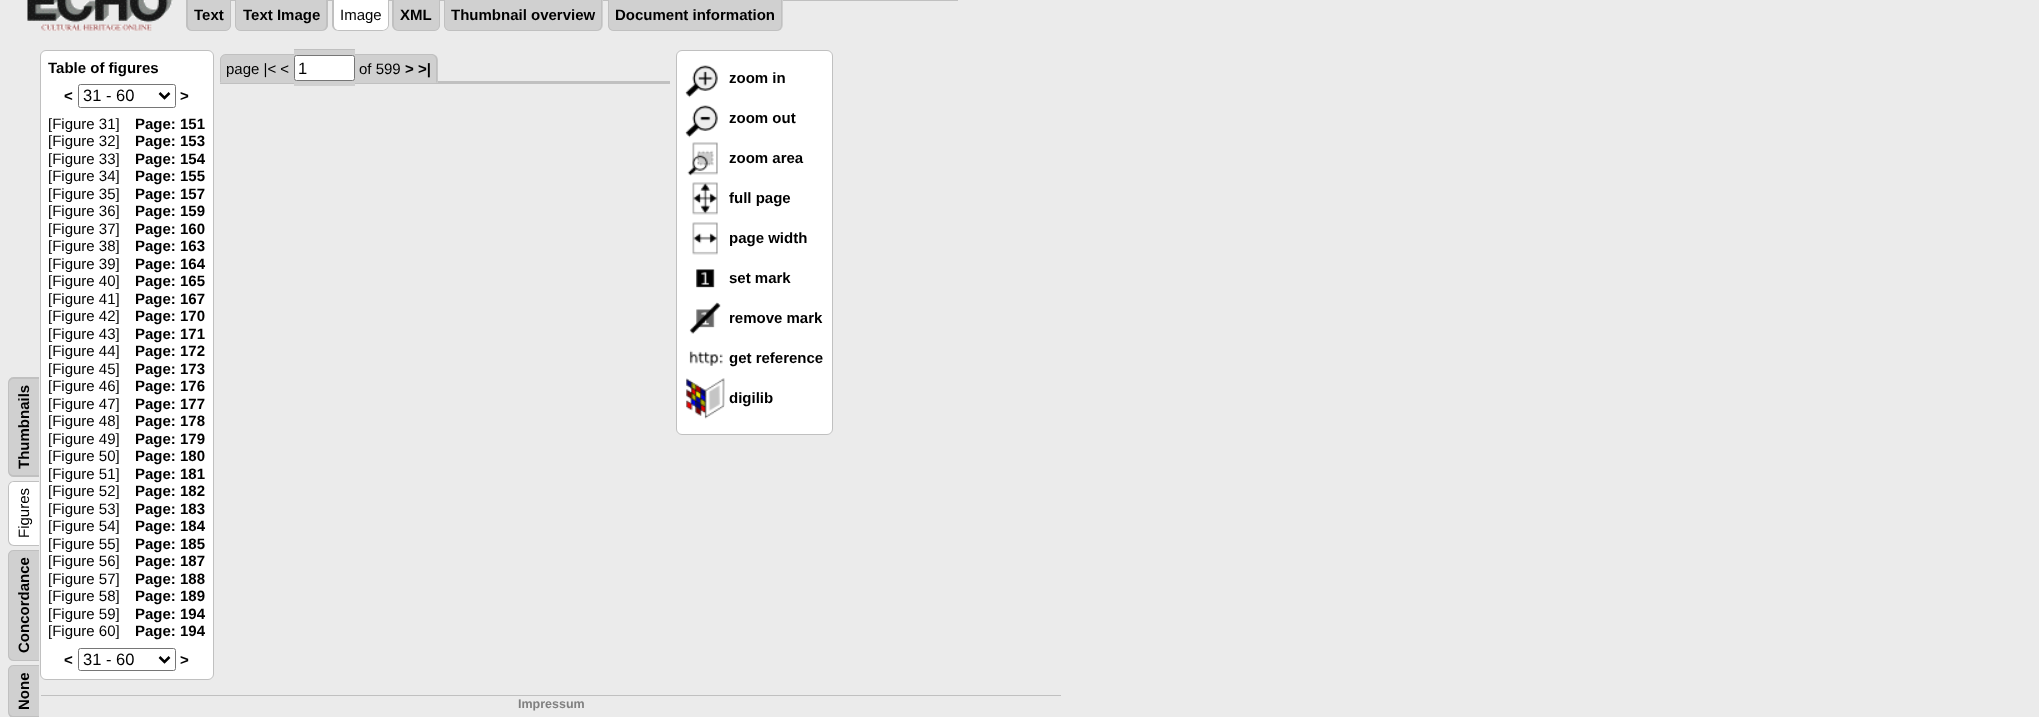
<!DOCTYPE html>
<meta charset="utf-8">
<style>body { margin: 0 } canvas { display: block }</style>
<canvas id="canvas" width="2039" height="717"></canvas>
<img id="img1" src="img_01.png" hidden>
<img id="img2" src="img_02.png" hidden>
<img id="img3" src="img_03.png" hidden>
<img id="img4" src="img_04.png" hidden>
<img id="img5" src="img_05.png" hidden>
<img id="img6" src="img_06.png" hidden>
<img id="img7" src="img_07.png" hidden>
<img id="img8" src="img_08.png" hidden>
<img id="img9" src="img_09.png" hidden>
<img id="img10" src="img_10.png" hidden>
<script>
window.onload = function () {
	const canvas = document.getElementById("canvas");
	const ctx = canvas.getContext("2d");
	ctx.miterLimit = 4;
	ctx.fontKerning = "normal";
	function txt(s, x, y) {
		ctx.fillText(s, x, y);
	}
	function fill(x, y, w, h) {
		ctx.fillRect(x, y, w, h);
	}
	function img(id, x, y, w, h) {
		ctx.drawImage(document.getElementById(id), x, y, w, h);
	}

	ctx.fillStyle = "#EBEBEB";
	fill(0, 0, 2039, 717);
	img("img1", 27, 0, 146, 31);
	ctx.strokeStyle = "#C0C0C0";
	ctx.strokeRect(186.5, -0.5, 771, 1);
	ctx.fillStyle = "#D0D0D0";
	ctx.beginPath();
	ctx.roundRect(186, 0, 45, 31, [0, 0, 6, 6]);
	ctx.fill();
	ctx.fillStyle = "#C0C0C0";
	ctx.beginPath();
	ctx.moveTo(186, 0);
	ctx.lineTo(231, 0);
	ctx.lineTo(231, 25);
	ctx.bezierCurveTo(231, 28, 228, 31, 225, 31);
	ctx.lineTo(192, 31);
	ctx.bezierCurveTo(189, 31, 186, 28, 186, 25);
	ctx.closePath();
	ctx.moveTo(188, 0);
	ctx.lineTo(230, 0);
	ctx.lineTo(230, 25);
	ctx.bezierCurveTo(230, 28, 228, 30, 225, 30);
	ctx.lineTo(192, 30);
	ctx.bezierCurveTo(190, 30, 188, 28, 188, 25);
	ctx.closePath();
	ctx.fill("evenodd");
	ctx.fillStyle = "#D0D0D0";
	ctx.beginPath();
	ctx.roundRect(235, 0, 93, 31, [0, 0, 6, 6]);
	ctx.fill();
	ctx.fillStyle = "#C0C0C0";
	ctx.beginPath();
	ctx.moveTo(235, 0);
	ctx.lineTo(328, 0);
	ctx.lineTo(328, 25);
	ctx.bezierCurveTo(328, 28, 325, 31, 321, 31);
	ctx.lineTo(241, 31);
	ctx.bezierCurveTo(238, 31, 235, 28, 235, 25);
	ctx.closePath();
	ctx.moveTo(236, 0);
	ctx.lineTo(326, 0);
	ctx.lineTo(326, 25);
	ctx.bezierCurveTo(326, 28, 324, 30, 321, 30);
	ctx.lineTo(241, 30);
	ctx.bezierCurveTo(238, 30, 236, 28, 236, 25);
	ctx.closePath();
	ctx.fill("evenodd");
	ctx.fillStyle = "#FFFFFF";
	ctx.beginPath();
	ctx.roundRect(333, 0, 56, 31, [0, 0, 6, 6]);
	ctx.fill();
	ctx.fillStyle = "#C0C0C0";
	ctx.beginPath();
	ctx.moveTo(332, 0);
	ctx.lineTo(389, 0);
	ctx.lineTo(389, 25);
	ctx.bezierCurveTo(389, 28, 386, 31, 382, 31);
	ctx.lineTo(339, 31);
	ctx.bezierCurveTo(335, 31, 332, 28, 332, 25);
	ctx.closePath();
	ctx.moveTo(334, 0);
	ctx.lineTo(388, 0);
	ctx.lineTo(388, 25);
	ctx.bezierCurveTo(388, 28, 385, 30, 382, 30);
	ctx.lineTo(339, 30);
	ctx.bezierCurveTo(336, 30, 334, 28, 334, 25);
	ctx.closePath();
	ctx.fill("evenodd");
	ctx.fillStyle = "#D0D0D0";
	ctx.beginPath();
	ctx.roundRect(393, 0, 47, 31, [0, 0, 6, 6]);
	ctx.fill();
	ctx.fillStyle = "#C0C0C0";
	ctx.beginPath();
	ctx.moveTo(392, 0);
	ctx.lineTo(440, 0);
	ctx.lineTo(440, 25);
	ctx.bezierCurveTo(440, 28, 437, 31, 434, 31);
	ctx.lineTo(399, 31);
	ctx.bezierCurveTo(395, 31, 392, 28, 392, 25);
	ctx.closePath();
	ctx.moveTo(394, 0);
	ctx.lineTo(439, 0);
	ctx.lineTo(439, 25);
	ctx.bezierCurveTo(439, 28, 437, 30, 434, 30);
	ctx.lineTo(399, 30);
	ctx.bezierCurveTo(396, 30, 394, 28, 394, 25);
	ctx.closePath();
	ctx.fill("evenodd");
	ctx.fillStyle = "#D0D0D0";
	ctx.beginPath();
	ctx.roundRect(444, 0, 159, 31, [0, 0, 6, 6]);
	ctx.fill();
	ctx.fillStyle = "#C0C0C0";
	ctx.beginPath();
	ctx.moveTo(444, 0);
	ctx.lineTo(602, 0);
	ctx.lineTo(602, 25);
	ctx.bezierCurveTo(602, 28, 600, 31, 596, 31);
	ctx.lineTo(450, 31);
	ctx.bezierCurveTo(447, 31, 444, 28, 444, 25);
	ctx.closePath();
	ctx.moveTo(445, 0);
	ctx.lineTo(601, 0);
	ctx.lineTo(601, 25);
	ctx.bezierCurveTo(601, 28, 599, 30, 596, 30);
	ctx.lineTo(450, 30);
	ctx.bezierCurveTo(447, 30, 445, 28, 445, 25);
	ctx.closePath();
	ctx.fill("evenodd");
	ctx.fillStyle = "#D0D0D0";
	ctx.beginPath();
	ctx.roundRect(608, 0, 175, 31, [0, 0, 6, 6]);
	ctx.fill();
	ctx.fillStyle = "#C0C0C0";
	ctx.beginPath();
	ctx.moveTo(608, 0);
	ctx.lineTo(782, 0);
	ctx.lineTo(782, 25);
	ctx.bezierCurveTo(782, 28, 780, 31, 776, 31);
	ctx.lineTo(614, 31);
	ctx.bezierCurveTo(610, 31, 608, 28, 608, 25);
	ctx.closePath();
	ctx.moveTo(609, 0);
	ctx.lineTo(781, 0);
	ctx.lineTo(781, 25);
	ctx.bezierCurveTo(781, 28, 779, 30, 776, 30);
	ctx.lineTo(614, 30);
	ctx.bezierCurveTo(611, 30, 609, 28, 609, 25);
	ctx.closePath();
	ctx.fill("evenodd");
	ctx.fillStyle = "#D0D0D0";
	ctx.beginPath();
	ctx.moveTo(8, 470);
	ctx.lineTo(8, 384);
	ctx.bezierCurveTo(8, 380, 10, 377, 14, 377);
	ctx.lineTo(39, 377);
	ctx.lineTo(39, 477);
	ctx.lineTo(14, 477);
	ctx.bezierCurveTo(10, 477, 8, 474, 8, 470);
	ctx.closePath();
	ctx.fill();
	ctx.fillStyle = "#C0C0C0";
	ctx.beginPath();
	ctx.moveTo(8, 470);
	ctx.lineTo(8, 384);
	ctx.bezierCurveTo(8, 380, 10, 377, 14, 377);
	ctx.lineTo(39, 377);
	ctx.lineTo(39, 477);
	ctx.lineTo(14, 477);
	ctx.bezierCurveTo(10, 477, 8, 474, 8, 470);
	ctx.closePath();
	ctx.moveTo(9, 470);
	ctx.lineTo(9, 384);
	ctx.bezierCurveTo(9, 381, 11, 379, 14, 379);
	ctx.lineTo(39, 379);
	ctx.lineTo(39, 475);
	ctx.lineTo(14, 475);
	ctx.bezierCurveTo(11, 475, 9, 473, 9, 470);
	ctx.closePath();
	ctx.fill("evenodd");
	ctx.fillStyle = "#FFFFFF";
	ctx.beginPath();
	ctx.moveTo(8, 540);
	ctx.lineTo(8, 487);
	ctx.bezierCurveTo(8, 484, 10, 481, 14, 481);
	ctx.lineTo(39, 481);
	ctx.lineTo(39, 546);
	ctx.lineTo(14, 546);
	ctx.bezierCurveTo(10, 546, 8, 543, 8, 540);
	ctx.closePath();
	ctx.fill();
	ctx.fillStyle = "#C0C0C0";
	ctx.beginPath();
	ctx.moveTo(8, 540);
	ctx.lineTo(8, 487);
	ctx.bezierCurveTo(8, 484, 10, 481, 14, 481);
	ctx.lineTo(39, 481);
	ctx.lineTo(39, 546);
	ctx.lineTo(14, 546);
	ctx.bezierCurveTo(10, 546, 8, 543, 8, 540);
	ctx.closePath();
	ctx.moveTo(9, 540);
	ctx.lineTo(9, 487);
	ctx.bezierCurveTo(9, 484, 11, 482, 14, 482);
	ctx.lineTo(39, 482);
	ctx.lineTo(39, 545);
	ctx.lineTo(14, 545);
	ctx.bezierCurveTo(11, 545, 9, 542, 9, 540);
	ctx.closePath();
	ctx.fill("evenodd");
	ctx.fillStyle = "#D0D0D0";
	ctx.beginPath();
	ctx.moveTo(8, 655);
	ctx.lineTo(8, 556);
	ctx.bezierCurveTo(8, 553, 10, 550, 14, 550);
	ctx.lineTo(39, 550);
	ctx.lineTo(39, 661);
	ctx.lineTo(14, 661);
	ctx.bezierCurveTo(10, 661, 8, 658, 8, 655);
	ctx.closePath();
	ctx.fill();
	ctx.fillStyle = "#C0C0C0";
	ctx.beginPath();
	ctx.moveTo(8, 655);
	ctx.lineTo(8, 556);
	ctx.bezierCurveTo(8, 553, 10, 550, 14, 550);
	ctx.lineTo(39, 550);
	ctx.lineTo(39, 661);
	ctx.lineTo(14, 661);
	ctx.bezierCurveTo(10, 661, 8, 658, 8, 655);
	ctx.closePath();
	ctx.moveTo(9, 655);
	ctx.lineTo(9, 556);
	ctx.bezierCurveTo(9, 553, 11, 551, 14, 551);
	ctx.lineTo(39, 551);
	ctx.lineTo(39, 660);
	ctx.lineTo(14, 660);
	ctx.bezierCurveTo(11, 660, 9, 657, 9, 655);
	ctx.closePath();
	ctx.fill("evenodd");
	ctx.fillStyle = "#D0D0D0";
	ctx.beginPath();
	ctx.moveTo(8, 711);
	ctx.lineTo(8, 671);
	ctx.bezierCurveTo(8, 668, 10, 665, 14, 665);
	ctx.lineTo(39, 665);
	ctx.lineTo(39, 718);
	ctx.lineTo(14, 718);
	ctx.bezierCurveTo(10, 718, 8, 715, 8, 711);
	ctx.closePath();
	ctx.fill();
	ctx.fillStyle = "#C0C0C0";
	ctx.beginPath();
	ctx.moveTo(8, 711);
	ctx.lineTo(8, 671);
	ctx.bezierCurveTo(8, 668, 10, 665, 14, 665);
	ctx.lineTo(39, 665);
	ctx.lineTo(39, 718);
	ctx.lineTo(14, 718);
	ctx.bezierCurveTo(10, 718, 8, 715, 8, 711);
	ctx.closePath();
	ctx.moveTo(9, 711);
	ctx.lineTo(9, 671);
	ctx.bezierCurveTo(9, 668, 11, 666, 14, 666);
	ctx.lineTo(39, 666);
	ctx.lineTo(39, 716);
	ctx.lineTo(14, 716);
	ctx.bezierCurveTo(11, 716, 9, 714, 9, 711);
	ctx.closePath();
	ctx.fill("evenodd");
	ctx.fillStyle = "#FFFFFF";
	ctx.beginPath();
	ctx.roundRect(40.5, 50.5, 173, 629, 5.5);
	ctx.fill();
	ctx.stroke();
	ctx.beginPath();
	ctx.roundRect(78.5, 84.5, 97, 23, 2);
	ctx.strokeStyle = "#767676";
	ctx.stroke();
	ctx.beginPath();
	ctx.moveTo(159.5, 93);
	ctx.lineTo(164.5, 98);
	ctx.lineTo(169.5, 93);
	ctx.strokeStyle = "#000000";
	ctx.lineWidth = 2.5;
	ctx.stroke();
	ctx.beginPath();
	ctx.roundRect(78.5, 648.5, 97, 22, 2);
	ctx.strokeStyle = "#767676";
	ctx.lineWidth = 1;
	ctx.stroke();
	ctx.beginPath();
	ctx.moveTo(159.5, 657);
	ctx.lineTo(164.5, 662);
	ctx.lineTo(169.5, 657);
	ctx.strokeStyle = "#000000";
	ctx.lineWidth = 2.5;
	ctx.stroke();
	ctx.fillStyle = "#C0C0C0";
	fill(220, 81, 450, 3);
	ctx.fillStyle = "#D0D0D0";
	ctx.beginPath();
	ctx.roundRect(220, 54, 44, 29, [6, 0, 0, 0]);
	ctx.fill();
	ctx.fillStyle = "#C0C0C0";
	ctx.beginPath();
	ctx.moveTo(226, 54);
	ctx.lineTo(264, 54);
	ctx.lineTo(264, 82);
	ctx.lineTo(220, 82);
	ctx.lineTo(220, 60);
	ctx.bezierCurveTo(220, 57, 223, 54, 226, 54);
	ctx.closePath();
	ctx.moveTo(226, 55);
	ctx.lineTo(264, 55);
	ctx.lineTo(264, 82);
	ctx.lineTo(221, 82);
	ctx.lineTo(221, 60);
	ctx.bezierCurveTo(221, 57, 223, 55, 226, 55);
	ctx.closePath();
	ctx.fill("evenodd");
	ctx.fillStyle = "#D0D0D0";
	fill(264, 55, 12, 28);
	ctx.fillStyle = "#C0C0C0";
	fill(264, 54, 12, 1);
	ctx.fillStyle = "#D0D0D0";
	fill(276, 54, 4, 29);
	ctx.fillStyle = "#C0C0C0";
	fill(276, 54, 13, 1);
	ctx.fillStyle = "#D0D0D0";
	fill(280, 55, 9, 28);
	fill(289, 54, 5, 29);
	ctx.fillStyle = "#C0C0C0";
	fill(289, 54, 5, 1);
	ctx.fillStyle = "#D0D0D0";
	fill(294, 50, 61, 36);
	ctx.fillStyle = "#C0C0C0";
	fill(294, 49, 61, 1);
	ctx.fillStyle = "#D0D0D0";
	fill(355, 54, 4, 29);
	ctx.fillStyle = "#C0C0C0";
	fill(355, 54, 59, 1);
	ctx.fillStyle = "#D0D0D0";
	fill(359, 55, 55, 28);
	fill(414, 54, 4, 29);
	ctx.fillStyle = "#C0C0C0";
	fill(414, 54, 4, 1);
	ctx.fillStyle = "#D0D0D0";
	ctx.beginPath();
	ctx.roundRect(418, 54, 20, 29, [0, 6, 0, 0]);
	ctx.fill();
	ctx.fillStyle = "#C0C0C0";
	ctx.beginPath();
	ctx.moveTo(417.5, 54);
	ctx.lineTo(431, 54);
	ctx.bezierCurveTo(434.5, 54, 437.5, 56.5, 437.5, 60);
	ctx.lineTo(437.5, 82.5);
	ctx.lineTo(417.5, 82.5);
	ctx.closePath();
	ctx.moveTo(417.5, 55);
	ctx.lineTo(431, 55);
	ctx.bezierCurveTo(434, 55, 436, 57, 436, 60);
	ctx.lineTo(436, 82.5);
	ctx.lineTo(417.5, 82.5);
	ctx.closePath();
	ctx.fill("evenodd");
	ctx.fillStyle = "#FFFFFF";
	ctx.beginPath();
	ctx.roundRect(294.5, 55.5, 60, 25, 2);
	ctx.fill();
	ctx.strokeStyle = "#767676";
	ctx.lineWidth = 1;
	ctx.stroke();
	ctx.beginPath();
	ctx.roundRect(676.5, 50.5, 156, 384, 5.5);
	ctx.fill();
	ctx.strokeStyle = "#C0C0C0";
	ctx.stroke();
	img("img2", 685, 65, 33, 33);
	img("img3", 685, 105, 33, 33);
	img("img4", 687, 142, 31, 34);
	img("img5", 692, 182, 26, 33);
	img("img6", 692, 222, 26, 33);
	img("img7", 696, 269, 19, 19);
	img("img8", 689, 302, 32, 32);
	img("img9", 689, 350, 34, 16);
	img("img10", 686, 378, 39, 41);
	ctx.fillStyle = "#C0C0C0";
	fill(41, 695, 1020, 1);
	ctx.font = "bold 15px Liberation Sans";
	ctx.fillStyle = "#000000";
	txt("Text", 194, 20);
	txt("Text Image", 243, 20);
	ctx.font = "15px Liberation Sans";
	txt("Image", 340, 20);
	ctx.font = "bold 15px Liberation Sans";
	txt("XML", 400, 20);
	txt("Thumbnail overview", 451, 20);
	txt("Document information", 615, 20);
	ctx.save();
	ctx.translate(29, 469);
	ctx.rotate(-90 * Math.PI / 180);
	ctx.fillText("Thumbnails", 0, 0);
	ctx.restore();
	ctx.font = "15px Liberation Sans";
	ctx.save();
	ctx.translate(29, 538);
	ctx.rotate(-90 * Math.PI / 180);
	ctx.fillText("Figures", 0, 0);
	ctx.restore();
	ctx.font = "bold 15px Liberation Sans";
	ctx.save();
	ctx.translate(29, 653);
	ctx.rotate(-90 * Math.PI / 180);
	ctx.fillText("Concordance", 0, 0);
	ctx.restore();
	ctx.save();
	ctx.translate(29, 710);
	ctx.rotate(-90 * Math.PI / 180);
	ctx.fillText("None", 0, 0);
	ctx.restore();
	txt("Table of figures", 48, 73);
	txt("<", 64, 101);
	ctx.font = "16.5px Liberation Sans";
	txt("31 - 60", 83, 101);
	ctx.font = "bold 15px Liberation Sans";
	txt(">", 180, 101);
	ctx.font = "15px Liberation Sans";
	txt("[Figure 31]", 48, 129);
	ctx.font = "bold 15px Liberation Sans";
	txt("Page: 151", 135, 129);
	ctx.font = "15px Liberation Sans";
	txt("[Figure 32]", 48, 146);
	ctx.font = "bold 15px Liberation Sans";
	txt("Page: 153", 135, 146);
	ctx.font = "15px Liberation Sans";
	txt("[Figure 33]", 48, 164);
	ctx.font = "bold 15px Liberation Sans";
	txt("Page: 154", 135, 164);
	ctx.font = "15px Liberation Sans";
	txt("[Figure 34]", 48, 181);
	ctx.font = "bold 15px Liberation Sans";
	txt("Page: 155", 135, 181);
	ctx.font = "15px Liberation Sans";
	txt("[Figure 35]", 48, 199);
	ctx.font = "bold 15px Liberation Sans";
	txt("Page: 157", 135, 199);
	ctx.font = "15px Liberation Sans";
	txt("[Figure 36]", 48, 216);
	ctx.font = "bold 15px Liberation Sans";
	txt("Page: 159", 135, 216);
	ctx.font = "15px Liberation Sans";
	txt("[Figure 37]", 48, 234);
	ctx.font = "bold 15px Liberation Sans";
	txt("Page: 160", 135, 234);
	ctx.font = "15px Liberation Sans";
	txt("[Figure 38]", 48, 251);
	ctx.font = "bold 15px Liberation Sans";
	txt("Page: 163", 135, 251);
	ctx.font = "15px Liberation Sans";
	txt("[Figure 39]", 48, 269);
	ctx.font = "bold 15px Liberation Sans";
	txt("Page: 164", 135, 269);
	ctx.font = "15px Liberation Sans";
	txt("[Figure 40]", 48, 286);
	ctx.font = "bold 15px Liberation Sans";
	txt("Page: 165", 135, 286);
	ctx.font = "15px Liberation Sans";
	txt("[Figure 41]", 48, 304);
	ctx.font = "bold 15px Liberation Sans";
	txt("Page: 167", 135, 304);
	ctx.font = "15px Liberation Sans";
	txt("[Figure 42]", 48, 321);
	ctx.font = "bold 15px Liberation Sans";
	txt("Page: 170", 135, 321);
	ctx.font = "15px Liberation Sans";
	txt("[Figure 43]", 48, 339);
	ctx.font = "bold 15px Liberation Sans";
	txt("Page: 171", 135, 339);
	ctx.font = "15px Liberation Sans";
	txt("[Figure 44]", 48, 356);
	ctx.font = "bold 15px Liberation Sans";
	txt("Page: 172", 135, 356);
	ctx.font = "15px Liberation Sans";
	txt("[Figure 45]", 48, 374);
	ctx.font = "bold 15px Liberation Sans";
	txt("Page: 173", 135, 374);
	ctx.font = "15px Liberation Sans";
	txt("[Figure 46]", 48, 391);
	ctx.font = "bold 15px Liberation Sans";
	txt("Page: 176", 135, 391);
	ctx.font = "15px Liberation Sans";
	txt("[Figure 47]", 48, 409);
	ctx.font = "bold 15px Liberation Sans";
	txt("Page: 177", 135, 409);
	ctx.font = "15px Liberation Sans";
	txt("[Figure 48]", 48, 426);
	ctx.font = "bold 15px Liberation Sans";
	txt("Page: 178", 135, 426);
	ctx.font = "15px Liberation Sans";
	txt("[Figure 49]", 48, 444);
	ctx.font = "bold 15px Liberation Sans";
	txt("Page: 179", 135, 444);
	ctx.font = "15px Liberation Sans";
	txt("[Figure 50]", 48, 461);
	ctx.font = "bold 15px Liberation Sans";
	txt("Page: 180", 135, 461);
	ctx.font = "15px Liberation Sans";
	txt("[Figure 51]", 48, 479);
	ctx.font = "bold 15px Liberation Sans";
	txt("Page: 181", 135, 479);
	ctx.font = "15px Liberation Sans";
	txt("[Figure 52]", 48, 496);
	ctx.font = "bold 15px Liberation Sans";
	txt("Page: 182", 135, 496);
	ctx.font = "15px Liberation Sans";
	txt("[Figure 53]", 48, 514);
	ctx.font = "bold 15px Liberation Sans";
	txt("Page: 183", 135, 514);
	ctx.font = "15px Liberation Sans";
	txt("[Figure 54]", 48, 531);
	ctx.font = "bold 15px Liberation Sans";
	txt("Page: 184", 135, 531);
	ctx.font = "15px Liberation Sans";
	txt("[Figure 55]", 48, 549);
	ctx.font = "bold 15px Liberation Sans";
	txt("Page: 185", 135, 549);
	ctx.font = "15px Liberation Sans";
	txt("[Figure 56]", 48, 566);
	ctx.font = "bold 15px Liberation Sans";
	txt("Page: 187", 135, 566);
	ctx.font = "15px Liberation Sans";
	txt("[Figure 57]", 48, 584);
	ctx.font = "bold 15px Liberation Sans";
	txt("Page: 188", 135, 584);
	ctx.font = "15px Liberation Sans";
	txt("[Figure 58]", 48, 601);
	ctx.font = "bold 15px Liberation Sans";
	txt("Page: 189", 135, 601);
	ctx.font = "15px Liberation Sans";
	txt("[Figure 59]", 48, 619);
	ctx.font = "bold 15px Liberation Sans";
	txt("Page: 194", 135, 619);
	ctx.font = "15px Liberation Sans";
	txt("[Figure 60]", 48, 636);
	ctx.font = "bold 15px Liberation Sans";
	txt("Page: 194", 135, 636);
	txt("<", 64, 665);
	ctx.font = "16.5px Liberation Sans";
	txt("31 - 60", 83, 665);
	ctx.font = "bold 15px Liberation Sans";
	txt(">", 180, 665);
	ctx.font = "15px Liberation Sans";
	txt("page |< <", 226, 74);
	ctx.font = "16.5px Liberation Sans";
	txt("1", 298, 74);
	ctx.font = "15px Liberation Sans";
	txt("of 599", 359, 74);
	ctx.font = "bold 15px Liberation Sans";
	txt("> >|", 405, 74);
	txt("zoom in", 729, 83);
	txt("zoom out", 729, 123);
	txt("zoom area", 729, 163);
	txt("full page", 729, 203);
	txt("page width", 729, 243);
	txt("set mark", 729, 283);
	txt("remove mark", 729, 323);
	txt("get reference", 729, 363);
	txt("digilib", 729, 403);
	ctx.font = "bold 12.5px Liberation Sans";
	ctx.fillStyle = "#808080";
	txt("Impressum", 518, 708);
};
</script>
